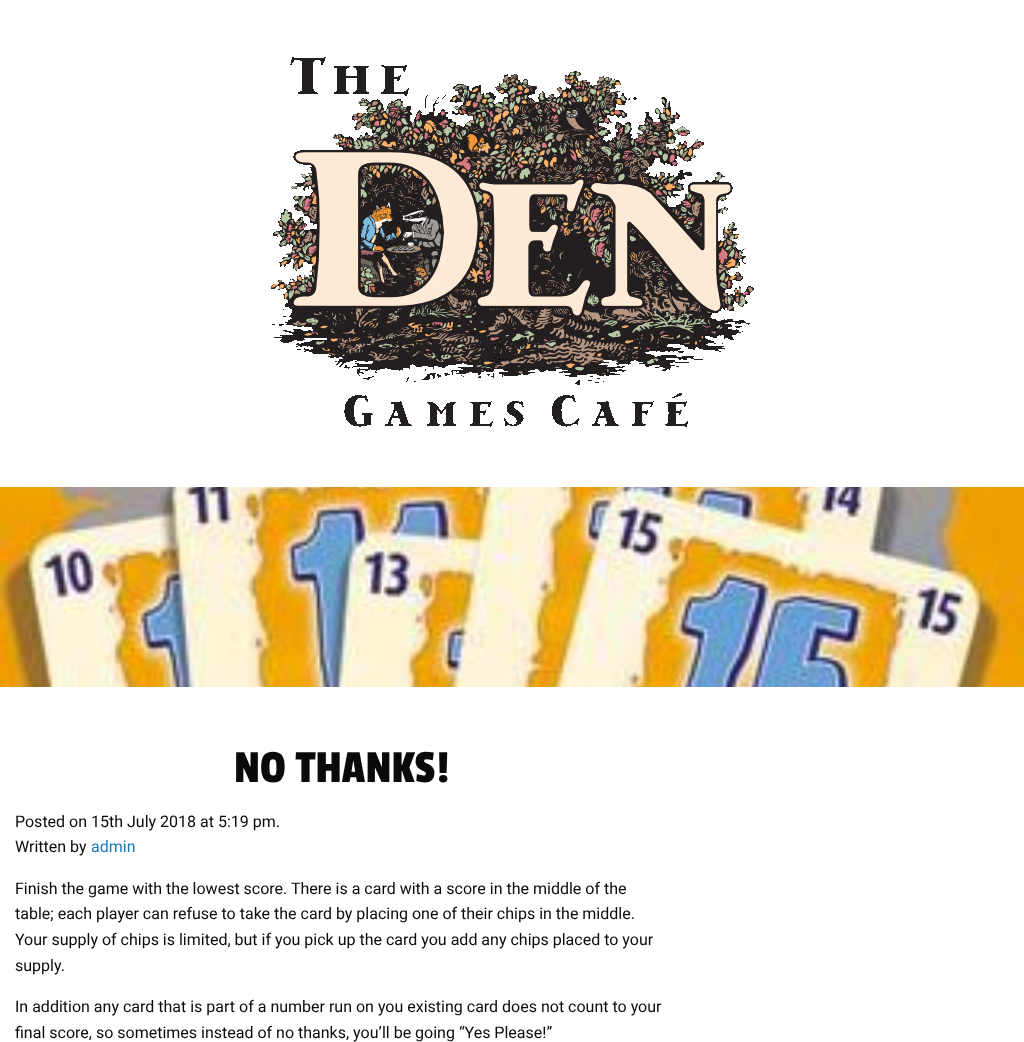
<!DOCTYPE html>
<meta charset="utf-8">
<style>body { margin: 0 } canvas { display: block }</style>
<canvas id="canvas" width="1024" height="1042"></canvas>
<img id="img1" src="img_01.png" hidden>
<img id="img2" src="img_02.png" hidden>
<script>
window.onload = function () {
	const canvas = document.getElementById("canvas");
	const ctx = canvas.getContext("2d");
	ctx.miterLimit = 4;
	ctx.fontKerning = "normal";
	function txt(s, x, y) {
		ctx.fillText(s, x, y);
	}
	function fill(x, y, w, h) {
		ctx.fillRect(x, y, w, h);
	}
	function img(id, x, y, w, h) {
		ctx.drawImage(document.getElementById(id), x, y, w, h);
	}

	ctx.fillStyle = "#FFFFFF";
	fill(0, 0, 1024, 1042);
	img("img1", 271, 57, 483, 370);
	img("img2", 0, 487, 1024, 200);
	ctx.font = "48px Passion One";
	ctx.fillStyle = "#0A0A0A";
	txt("NO THANKS!", 234, 782);
	ctx.font = "16px Roboto";
	txt("Posted on 15th July 2018 at 5:19 pm.", 15, 827);
	txt("Written by", 15, 852);
	ctx.fillStyle = "#1779BA";
	txt("admin", 91, 852);
	ctx.fillStyle = "#0A0A0A";
	txt("Finish the game with the lowest score. There is a card with a score in the middle of the", 15, 894);
	txt("table; each player can refuse to take the card by placing one of their chips in the middle.", 15, 919);
	txt("Your supply of chips is limited, but if you pick up the card you add any chips placed to your", 15, 945);
	txt("supply.", 15, 971);
	txt("In addition any card that is part of a number run on you existing card does not count to your", 15, 1012);
	txt("final score, so sometimes instead of no thanks, you’ll be going “Yes Please!”", 15, 1038);
};
</script>
